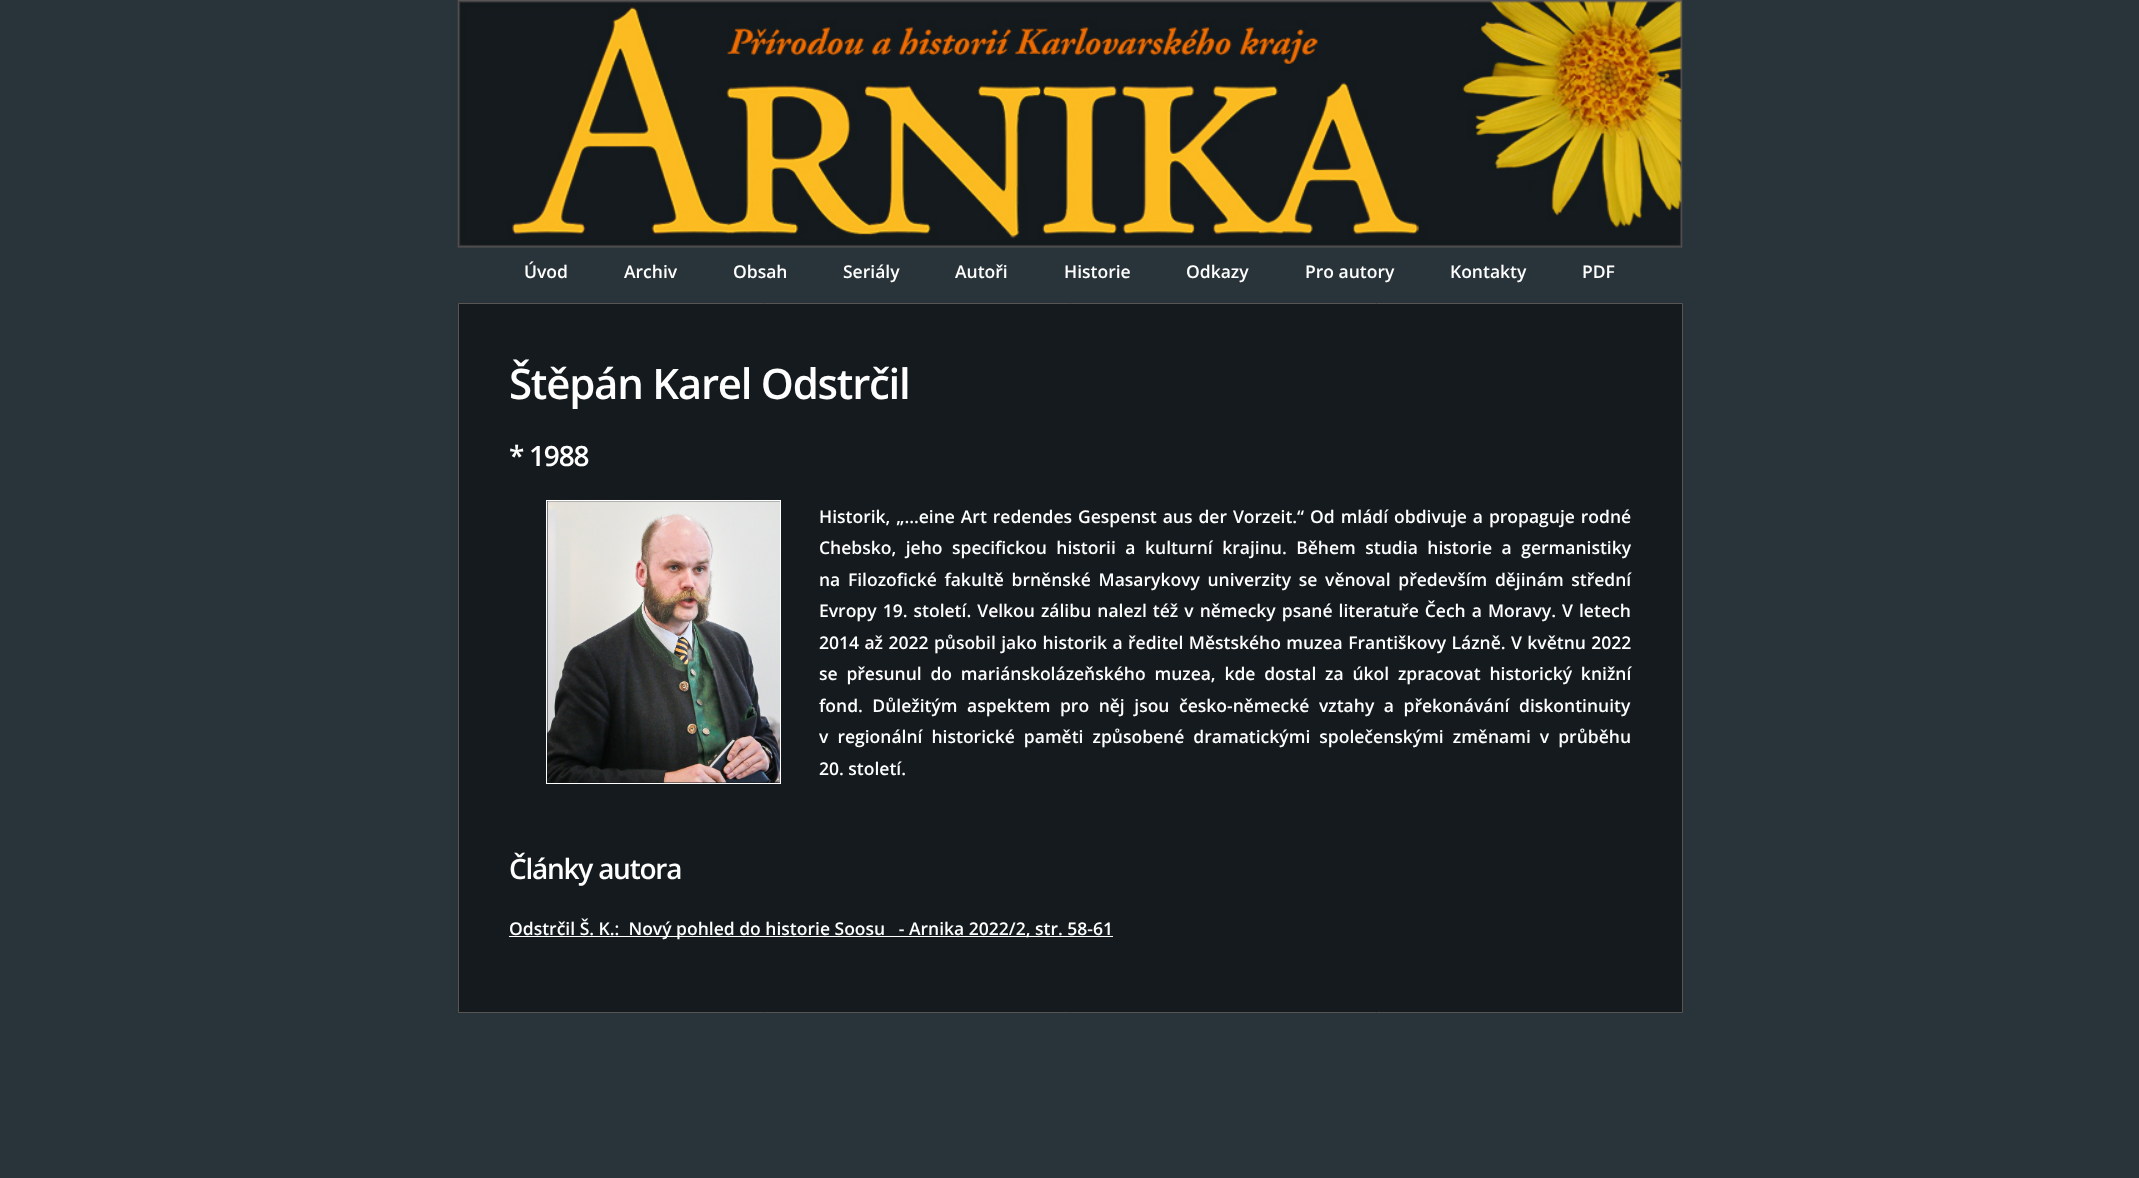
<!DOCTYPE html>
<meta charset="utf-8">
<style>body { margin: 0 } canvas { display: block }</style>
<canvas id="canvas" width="2139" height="1178"></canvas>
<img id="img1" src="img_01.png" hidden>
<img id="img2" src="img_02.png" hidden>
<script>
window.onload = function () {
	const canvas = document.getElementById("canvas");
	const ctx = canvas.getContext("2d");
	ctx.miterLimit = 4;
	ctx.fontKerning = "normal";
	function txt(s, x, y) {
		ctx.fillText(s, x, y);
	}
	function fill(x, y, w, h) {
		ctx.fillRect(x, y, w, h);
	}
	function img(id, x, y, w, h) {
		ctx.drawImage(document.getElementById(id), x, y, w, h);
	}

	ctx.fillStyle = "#29343A";
	fill(0, 0, 2139, 1178);
	img("img1", 457, 0, 1226, 248);
	ctx.fillStyle = "#141A1D";
	ctx.beginPath();
	ctx.rect(458.5, 303.5, 1224, 709);
	ctx.fill();
	ctx.strokeStyle = "#595555";
	ctx.stroke();
	ctx.strokeStyle = "#FFFFFF";
	ctx.strokeRect(546.5, 500.5, 234, 283);
	img("img2", 547, 501, 233, 282);
	ctx.fillStyle = "#FFFFFF";
	fill(509, 936, 604, 1);
	ctx.font = "600 17.5px Open Sans";
	txt("Úvod", 524, 278);
	txt("Archiv", 624, 278);
	txt("Obsah", 733, 278);
	txt("Seriály", 843, 278);
	txt("Autoři", 955, 278);
	txt("Historie", 1064, 278);
	txt("Odkazy", 1186, 278);
	txt("Pro autory", 1305, 278);
	txt("Kontakty", 1450, 278);
	txt("PDF", 1582, 278);
	ctx.letterSpacing = "-1.25px";
	ctx.font = "600 42px Open Sans";
	txt("Štěpán Karel Odstrčil", 509, 399);
	ctx.font = "600 28px Open Sans";
	txt("* 1988", 509, 466);
	ctx.letterSpacing = "0px";
	ctx.wordSpacing = "1.4px";
	ctx.font = "600 17.5px Open Sans";
	txt("Historik, „…eine Art redendes Gespenst aus der Vorzeit.“ Od mládí obdivuje a propaguje rodné", 819, 523);
	ctx.wordSpacing = "5px";
	txt("Chebsko, jeho specifickou historii a kulturní krajinu. Během studia historie a germanistiky", 819, 554);
	ctx.wordSpacing = "3.1px";
	txt("na Filozofické fakultě brněnské Masarykovy univerzity se věnoval především dějinám střední", 819, 586);
	ctx.wordSpacing = "1.5px";
	txt("Evropy 19. století. Velkou zálibu nalezl též v německy psané literatuře Čech a Moravy. V letech", 819, 617);
	ctx.wordSpacing = "0.9px";
	txt("2014 až 2022 působil jako historik a ředitel Městského muzea Františkovy Lázně. V květnu 2022", 819, 649);
	ctx.wordSpacing = "4.25px";
	txt("se přesunul do mariánskolázeňského muzea, kde dostal za úkol zpracovat historický knižní", 819, 680);
	ctx.wordSpacing = "5px";
	txt("fond. Důležitým aspektem pro něj jsou česko-německé vztahy a překonávání diskontinuity", 819, 712);
	ctx.wordSpacing = "4.5px";
	txt("v regionální historické paměti způsobené dramatickými společenskými změnami v průběhu", 819, 743);
	ctx.wordSpacing = "0px";
	txt("20. století.", 819, 775);
	ctx.letterSpacing = "-1.25px";
	ctx.font = "600 28px Open Sans";
	txt("Články autora", 509, 879);
	ctx.letterSpacing = "0px";
	ctx.font = "600 17.5px Open Sans";
	txt("Odstrčil Š. K.:  Nový pohled do historie Soosu   - Arnika 2022/2, str. 58-61", 509, 935);
};
</script>
